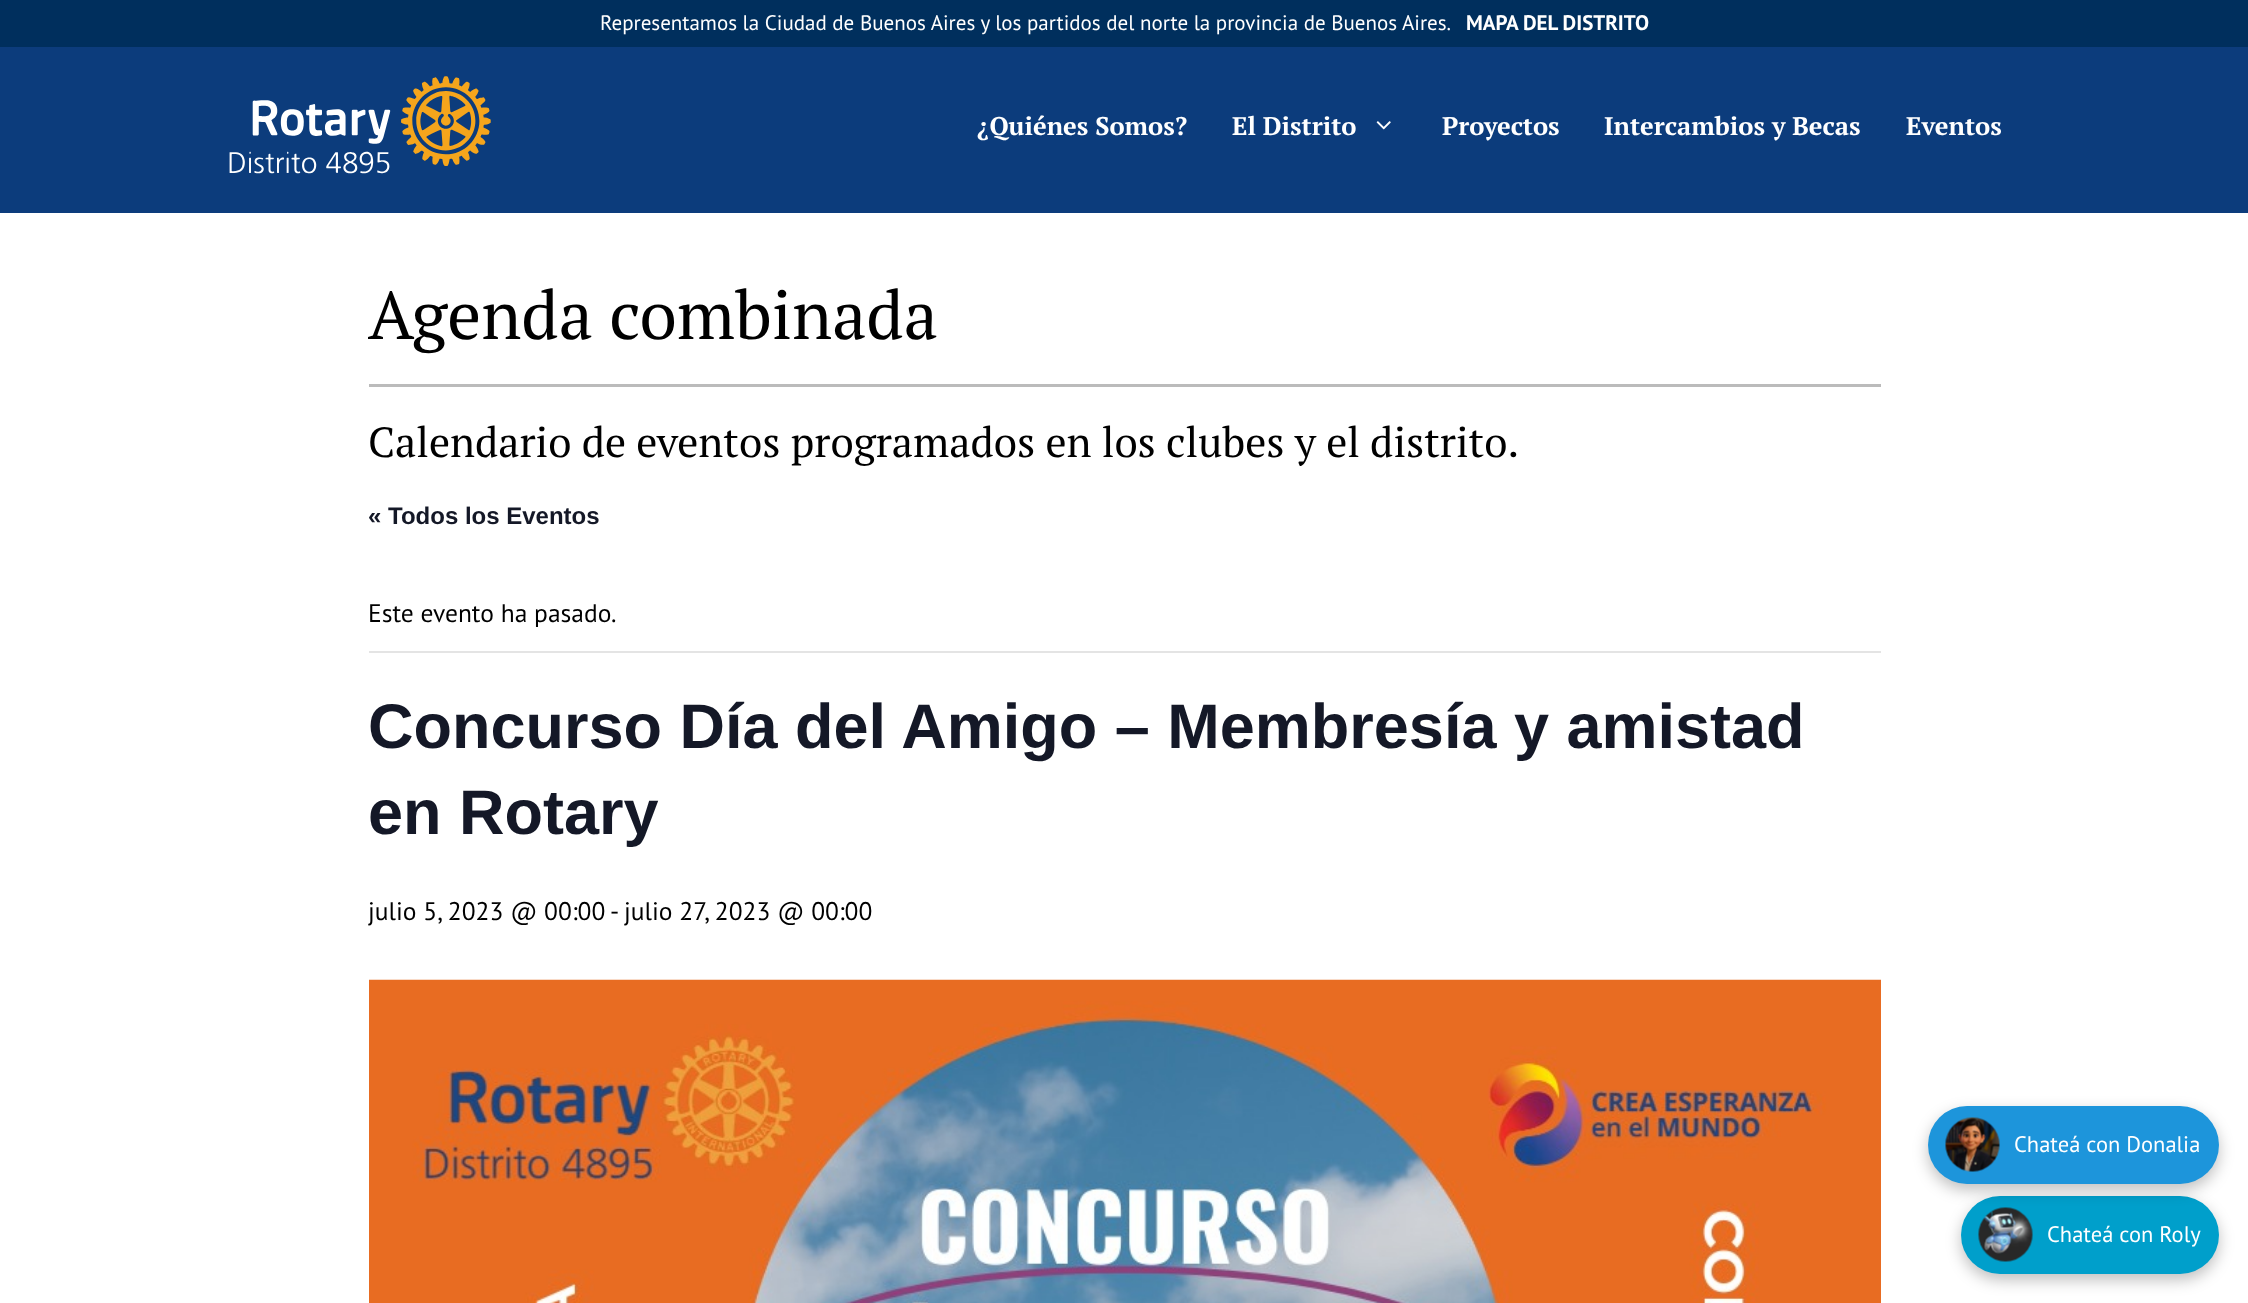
<!DOCTYPE html>
<meta charset="utf-8">
<style>body { margin: 0 } canvas { display: block }</style>
<canvas id="canvas" width="2248" height="1303"></canvas>
<img id="img1" src="img_01.png" hidden>
<img id="img2" src="img_02.png" hidden>
<img id="img3" src="img_03.png" hidden>
<img id="img4" src="img_05.png" hidden>
<img id="img5" src="img_04.png" hidden>
<script>
window.onload = function () {
	const canvas = document.getElementById("canvas");
	const ctx = canvas.getContext("2d");
	ctx.miterLimit = 4;
	ctx.fontKerning = "normal";
	function txt(s, x, y) {
		ctx.fillText(s, x, y);
	}
	function fill(x, y, w, h) {
		ctx.fillRect(x, y, w, h);
	}
	function round(x, y, w, h, r) {
		ctx.beginPath();
		ctx.roundRect(x, y, w, h, r);
		ctx.fill();
	}
	function img(id, x, y, w, h) {
		ctx.drawImage(document.getElementById(id), x, y, w, h);
	}

	ctx.fillStyle = "#FFFFFF";
	fill(0, 0, 2248, 1303);
	ctx.fillStyle = "#002F5D";
	fill(0, 0, 2248, 47);
	ctx.fillStyle = "#0C3C7C";
	fill(0, 47, 2248, 166);
	img("img1", 229, 76, 262, 98);
	img("img2", 1376, 121, 15, 9);
	ctx.fillStyle = "#BBBBBB";
	fill(369, 384, 1512, 3);
	ctx.fillStyle = "#E4E4E4";
	fill(369, 651, 1512, 2);
	img("img3", 369, 979, 1512, 324);
	ctx.fillStyle = "rgba(0, 0, 0, 0.25)";
	ctx.filter = "blur(7.5px)";
	ctx.beginPath();
	ctx.roundRect(1961, 1202, 258, 78, 39);
	ctx.fill();
	ctx.filter = "none";
	ctx.fillStyle = "#009FCB";
	round(1961, 1196, 258, 78, 39);
	img("img4", 1978, 1207, 55, 55);
	ctx.fillStyle = "rgba(0, 0, 0, 0.25)";
	ctx.filter = "blur(7.5px)";
	ctx.beginPath();
	ctx.roundRect(1928, 1112, 291, 78, 39);
	ctx.fill();
	ctx.filter = "none";
	ctx.fillStyle = "#1D95DB";
	round(1928, 1106, 291, 78, 39);
	img("img5", 1945, 1117, 55, 55);
	ctx.font = "21px PT Sans";
	ctx.fillStyle = "#FFFFFF";
	txt("Representamos la Ciudad de Buenos Aires y los partidos del norte la provincia de Buenos Aires.", 600, 30);
	ctx.font = "bold 21px PT Sans";
	txt("MAPA DEL DISTRITO", 1466, 30);
	ctx.font = "bold 25.5px PT Serif";
	txt("¿Quiénes Somos?", 977, 135);
	txt("El Distrito", 1232, 135);
	txt("Proyectos", 1442, 135);
	txt("Intercambios y Becas", 1604, 135);
	txt("Eventos", 1906, 135);
	ctx.font = "67.5px PT Serif";
	ctx.fillStyle = "#000000";
	txt("Agenda combinada", 368, 339);
	ctx.font = "42px PT Serif";
	txt("Calendario de eventos programados en los clubes y el distrito.", 368, 457);
	ctx.font = "bold 24px Liberation Sans";
	ctx.fillStyle = "#141827";
	txt("« Todos los Eventos", 368, 524);
	ctx.font = "25.5px PT Sans";
	ctx.fillStyle = "#000000";
	txt("Este evento ha pasado.", 368, 622);
	ctx.font = "bold 63px Liberation Sans";
	ctx.fillStyle = "#141827";
	txt("Concurso Día del Amigo – Membresía y amistad", 368, 748);
	txt("en Rotary", 368, 834);
	ctx.font = "25.5px PT Sans";
	ctx.fillStyle = "#000000";
	txt("julio 5, 2023 @ 00:00", 368, 920);
	txt("- julio 27, 2023 @ 00:00", 610, 920);
	ctx.font = "22.5px PT Sans";
	ctx.fillStyle = "#FFFFFF";
	txt("Chateá con Donalia", 2014, 1152);
	txt("Chateá con Roly", 2047, 1242);
};
</script>
